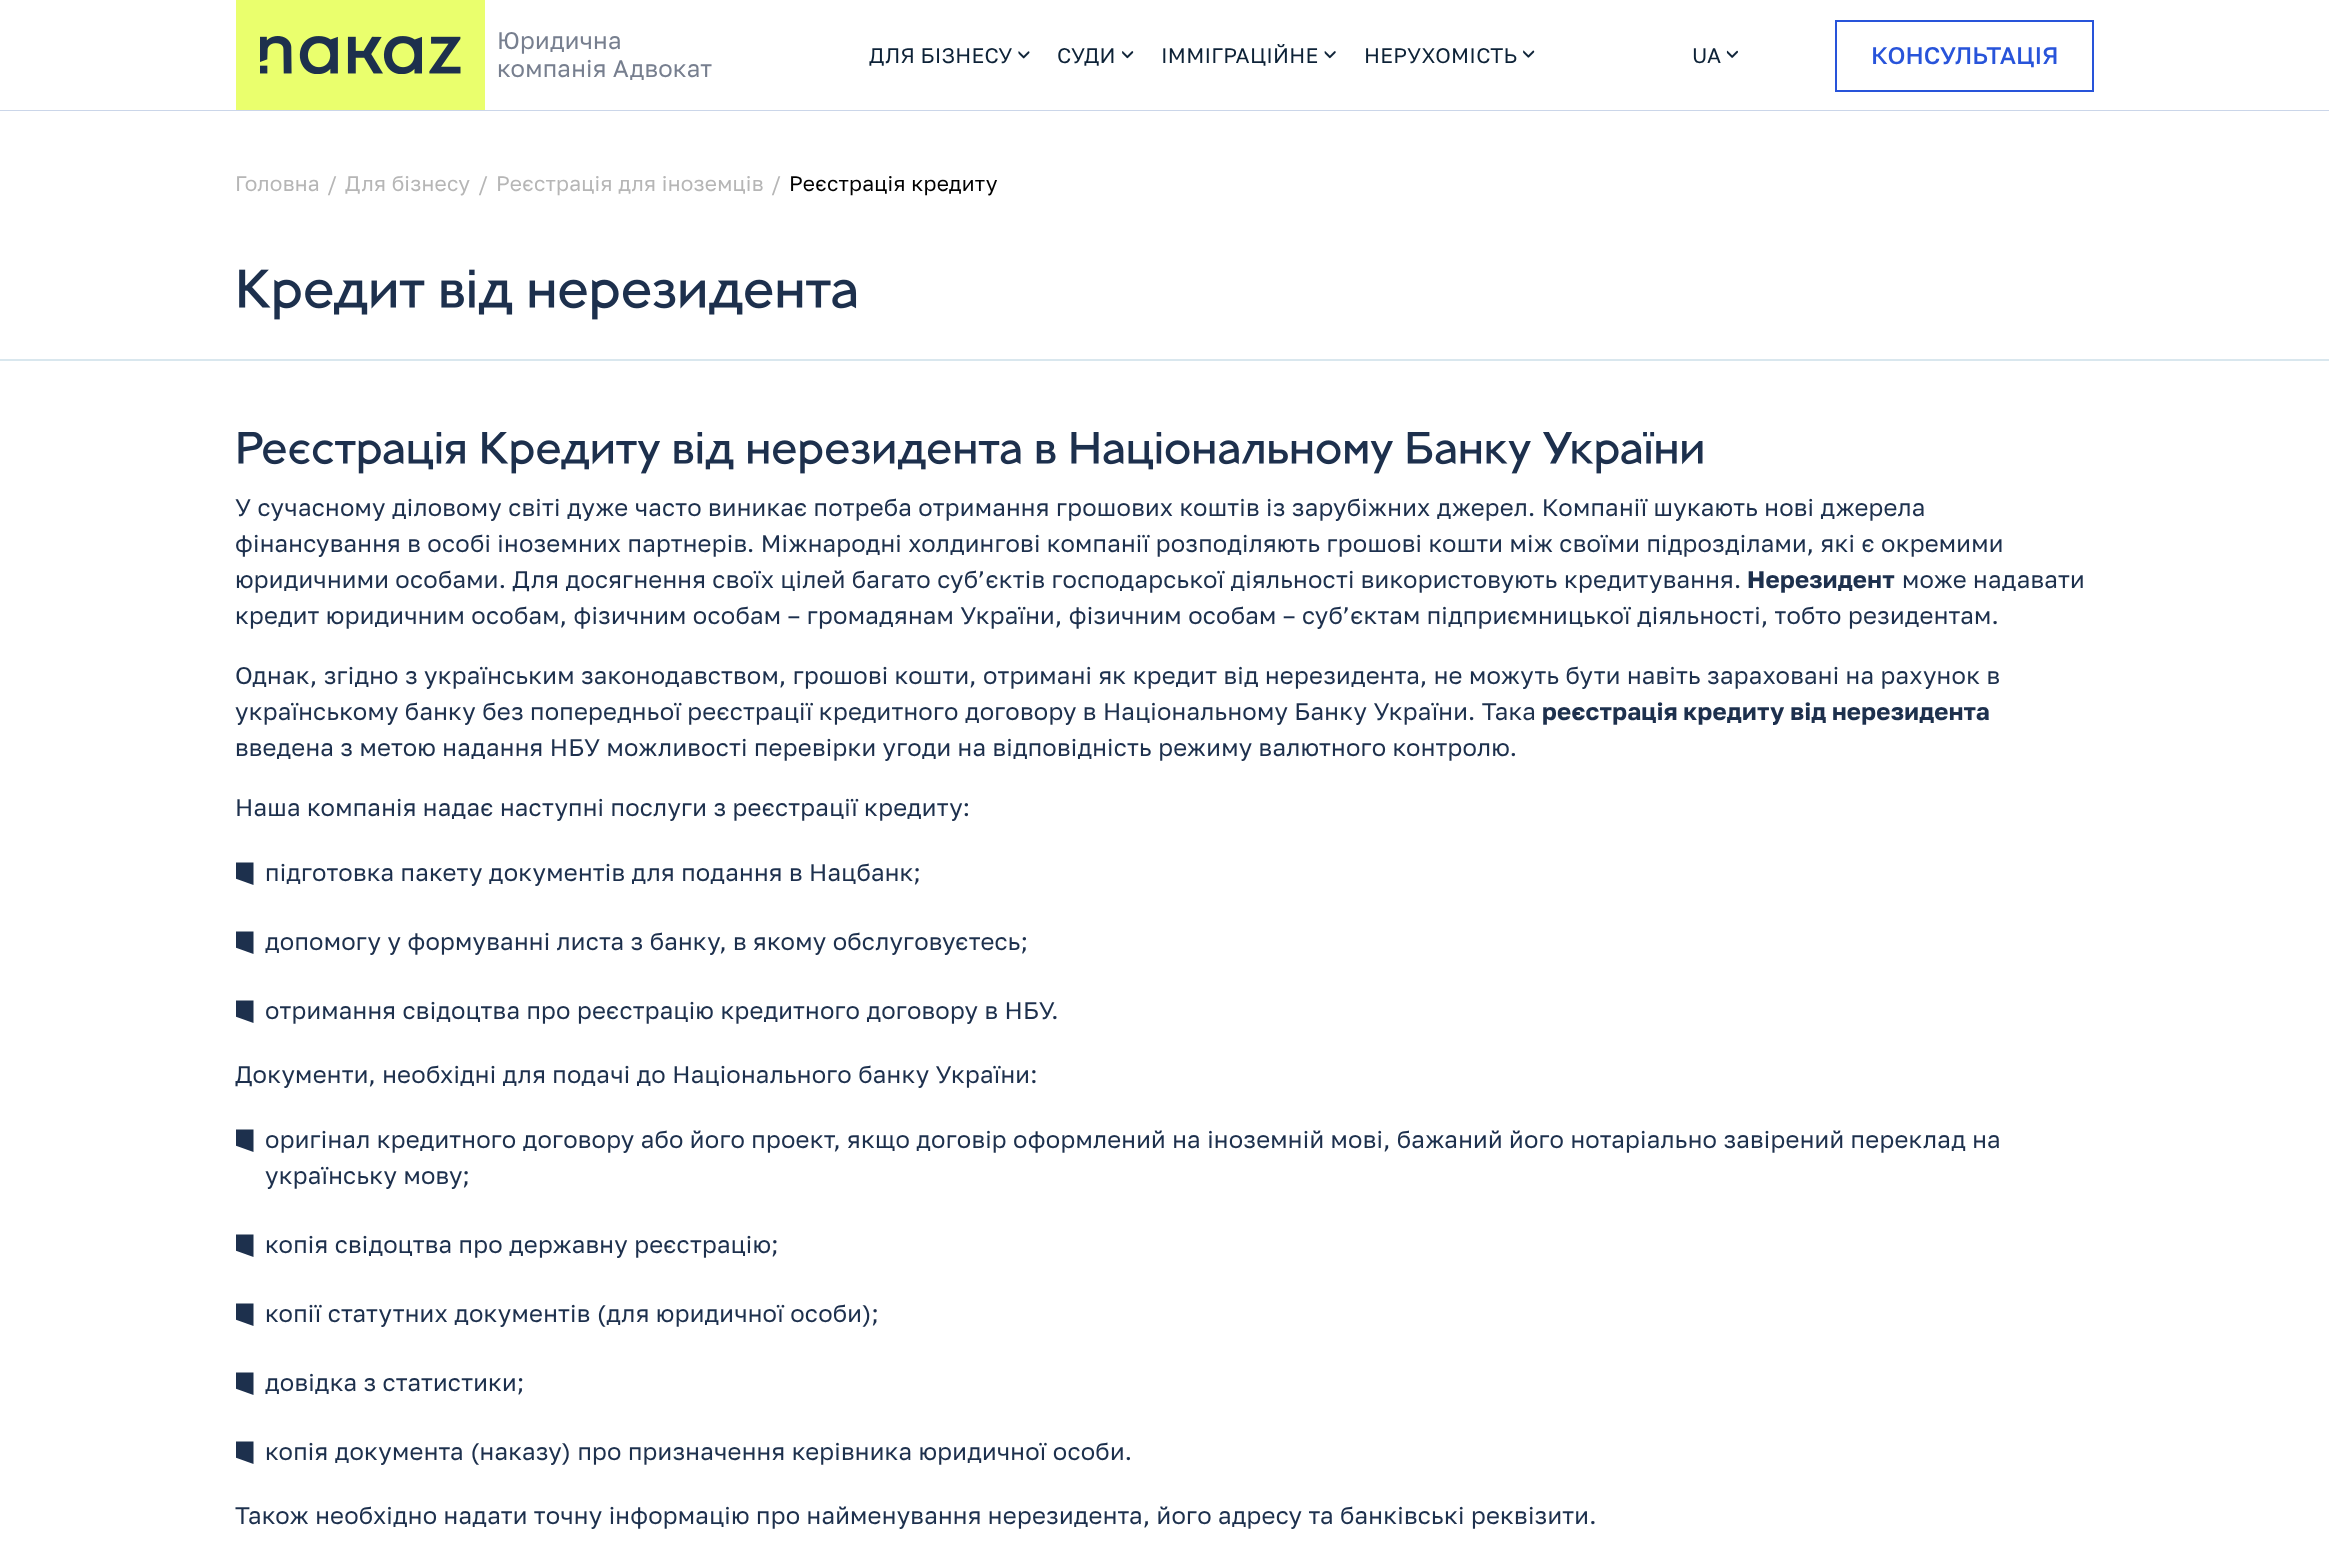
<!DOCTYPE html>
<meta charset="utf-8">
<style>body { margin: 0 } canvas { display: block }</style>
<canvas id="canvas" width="2329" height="1546"></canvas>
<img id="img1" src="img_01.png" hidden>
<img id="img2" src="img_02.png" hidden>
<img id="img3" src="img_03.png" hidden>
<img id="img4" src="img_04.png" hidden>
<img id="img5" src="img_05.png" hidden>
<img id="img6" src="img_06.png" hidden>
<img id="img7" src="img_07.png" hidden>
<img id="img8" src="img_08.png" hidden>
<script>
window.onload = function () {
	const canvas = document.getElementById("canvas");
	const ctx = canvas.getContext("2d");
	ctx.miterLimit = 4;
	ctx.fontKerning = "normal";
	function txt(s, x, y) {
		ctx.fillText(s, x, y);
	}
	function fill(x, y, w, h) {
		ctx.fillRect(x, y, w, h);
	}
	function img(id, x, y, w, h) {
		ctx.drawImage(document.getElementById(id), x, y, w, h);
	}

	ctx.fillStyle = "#FFFFFF";
	fill(0, 0, 2329, 1546);
	ctx.strokeStyle = "#CBD6E9";
	ctx.lineWidth = 2;
	ctx.strokeRect(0, 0, 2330, 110);
	fill(0, 0, 2329, 110);
	ctx.fillStyle = "#EAFF6D";
	fill(236, 0, 249, 110);
	img("img1", 260, 36, 201, 38);
	img("img2", 1018, 51, 12, 8);
	img("img3", 1122, 51, 12, 8);
	img("img4", 1324, 51, 12, 8);
	img("img5", 1523, 50, 12, 8);
	img("img6", 1726, 50, 12, 8);
	ctx.strokeStyle = "#2854DA";
	ctx.strokeRect(1836, 21, 257, 70);
	img("img7", 239, 269, 618, 51);
	ctx.fillStyle = "#D9E7EE";
	fill(0, 359, 2329, 2);
	img("img8", 238, 432, 1465, 42);
	ctx.save();
	ctx.beginPath();
	ctx.rect(236, 861, 18, 24);
	ctx.clip();
	ctx.fillStyle = "#1D304D";
	ctx.beginPath();
	ctx.moveTo(253.5, 862.5);
	ctx.lineTo(235.5, 862.5);
	ctx.lineTo(235.5, 878.5);
	ctx.lineTo(253.5, 885);
	ctx.closePath();
	ctx.fill();
	ctx.restore();
	ctx.save();
	ctx.beginPath();
	ctx.rect(236, 930, 18, 24);
	ctx.clip();
	ctx.fillStyle = "#1D304D";
	ctx.beginPath();
	ctx.moveTo(253.5, 931.5);
	ctx.lineTo(235.5, 931.5);
	ctx.lineTo(235.5, 947.5);
	ctx.lineTo(253.5, 954);
	ctx.closePath();
	ctx.fill();
	ctx.restore();
	ctx.save();
	ctx.beginPath();
	ctx.rect(236, 999, 18, 24);
	ctx.clip();
	ctx.fillStyle = "#1D304D";
	ctx.beginPath();
	ctx.moveTo(253.5, 1000.5);
	ctx.lineTo(235.5, 1000.5);
	ctx.lineTo(235.5, 1016.5);
	ctx.lineTo(253.5, 1023);
	ctx.closePath();
	ctx.fill();
	ctx.restore();
	ctx.save();
	ctx.beginPath();
	ctx.rect(236, 1128, 18, 24);
	ctx.clip();
	ctx.fillStyle = "#1D304D";
	ctx.beginPath();
	ctx.moveTo(253.5, 1129.5);
	ctx.lineTo(235.5, 1129.5);
	ctx.lineTo(235.5, 1145.5);
	ctx.lineTo(253.5, 1152);
	ctx.closePath();
	ctx.fill();
	ctx.restore();
	ctx.save();
	ctx.beginPath();
	ctx.rect(236, 1233, 18, 24);
	ctx.clip();
	ctx.fillStyle = "#1D304D";
	ctx.beginPath();
	ctx.moveTo(253.5, 1234.5);
	ctx.lineTo(235.5, 1234.5);
	ctx.lineTo(235.5, 1250.5);
	ctx.lineTo(253.5, 1257);
	ctx.closePath();
	ctx.fill();
	ctx.restore();
	ctx.save();
	ctx.beginPath();
	ctx.rect(236, 1302, 18, 24);
	ctx.clip();
	ctx.fillStyle = "#1D304D";
	ctx.beginPath();
	ctx.moveTo(253.5, 1303.5);
	ctx.lineTo(235.5, 1303.5);
	ctx.lineTo(235.5, 1319.5);
	ctx.lineTo(253.5, 1326);
	ctx.closePath();
	ctx.fill();
	ctx.restore();
	ctx.save();
	ctx.beginPath();
	ctx.rect(236, 1371, 18, 24);
	ctx.clip();
	ctx.fillStyle = "#1D304D";
	ctx.beginPath();
	ctx.moveTo(253.5, 1372.5);
	ctx.lineTo(235.5, 1372.5);
	ctx.lineTo(235.5, 1388.5);
	ctx.lineTo(253.5, 1395);
	ctx.closePath();
	ctx.fill();
	ctx.restore();
	ctx.save();
	ctx.beginPath();
	ctx.rect(236, 1440, 18, 24);
	ctx.clip();
	ctx.fillStyle = "#1D304D";
	ctx.beginPath();
	ctx.moveTo(253.5, 1441.5);
	ctx.lineTo(235.5, 1441.5);
	ctx.lineTo(235.5, 1457.5);
	ctx.lineTo(253.5, 1464);
	ctx.closePath();
	ctx.fill();
	ctx.restore();
	ctx.letterSpacing = "0.24px";
	ctx.font = "24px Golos";
	ctx.fillStyle = "#777F8F";
	txt("Юридична", 497, 49);
	txt("компанія Адвокат", 497, 77);
	ctx.font = "21px Golos";
	ctx.fillStyle = "#0D2237";
	txt("ДЛЯ БІЗНЕСУ", 869, 63);
	txt("СУДИ", 1057, 63);
	txt("ІММІГРАЦІЙНЕ", 1161, 63);
	txt("НЕРУХОМІСТЬ", 1364, 63);
	txt("UA", 1692, 63);
	ctx.letterSpacing = "0px";
	ctx.font = "500 24px Golos";
	ctx.fillStyle = "#2854DA";
	txt("КОНСУЛЬТАЦІЯ", 1871, 64);
	ctx.letterSpacing = "0.24px";
	ctx.font = "21px Golos";
	ctx.fillStyle = "#B6B6B6";
	txt("Головна", 235, 191);
	txt("/", 327, 191);
	txt("Для бізнесу", 345, 191);
	txt("/", 478, 191);
	txt("Реєстрація для іноземців", 496, 191);
	txt("/", 771, 191);
	ctx.fillStyle = "#000000";
	txt("Реєстрація кредиту", 789, 191);
	ctx.font = "24px Golos";
	ctx.fillStyle = "#1D304D";
	txt("У сучасному діловому світі дуже часто виникає потреба отримання грошових коштів із зарубіжних джерел. Компанії шукають нові джерела", 235, 516);
	txt("фінансування в особі іноземних партнерів. Міжнародні холдингові компанії розподіляють грошові кошти між своїми підрозділами, які є окремими", 235, 552);
	txt("юридичними особами. Для досягнення своїх цілей багато суб’єктів господарської діяльності використовують кредитування.", 235, 588);
	ctx.font = "bold 24px Golos";
	txt("Нерезидент", 1747, 588);
	ctx.font = "24px Golos";
	txt("може надавати", 1902, 588);
	txt("кредит юридичним особам, фізичним особам – громадянам України, фізичним особам – суб’єктам підприємницької діяльності, тобто резидентам.", 235, 624);
	txt("Однак, згідно з українським законодавством, грошові кошти, отримані як кредит від нерезидента, не можуть бути навіть зараховані на рахунок в", 235, 684);
	txt("українському банку без попередньої реєстрації кредитного договору в Національному Банку України. Така", 235, 720);
	ctx.font = "bold 24px Golos";
	txt("реєстрація кредиту від нерезидента", 1542, 720);
	ctx.font = "24px Golos";
	txt("введена з метою надання НБУ можливості перевірки угоди на відповідність режиму валютного контролю.", 235, 756);
	txt("Наша компанія надає наступні послуги з реєстрації кредиту:", 235, 816);
	txt("підготовка пакету документів для подання в Нацбанк;", 265, 881);
	txt("допомогу у формуванні листа з банку, в якому обслуговуєтесь;", 265, 950);
	txt("отримання свідоцтва про реєстрацію кредитного договору в НБУ.", 265, 1019);
	txt("Документи, необхідні для подачі до Національного банку України:", 235, 1083);
	txt("оригінал кредитного договору або його проект, якщо договір оформлений на іноземній мові, бажаний його нотаріально завірений переклад на", 265, 1148);
	txt("українську мову;", 265, 1184);
	txt("копія свідоцтва про державну реєстрацію;", 265, 1253);
	txt("копії статутних документів (для юридичної особи);", 265, 1322);
	txt("довідка з статистики;", 265, 1391);
	txt("копія документа (наказу) про призначення керівника юридичної особи.", 265, 1460);
	txt("Також необхідно надати точну інформацію про найменування нерезидента, його адресу та банківські реквізити.", 235, 1524);
};
</script>
